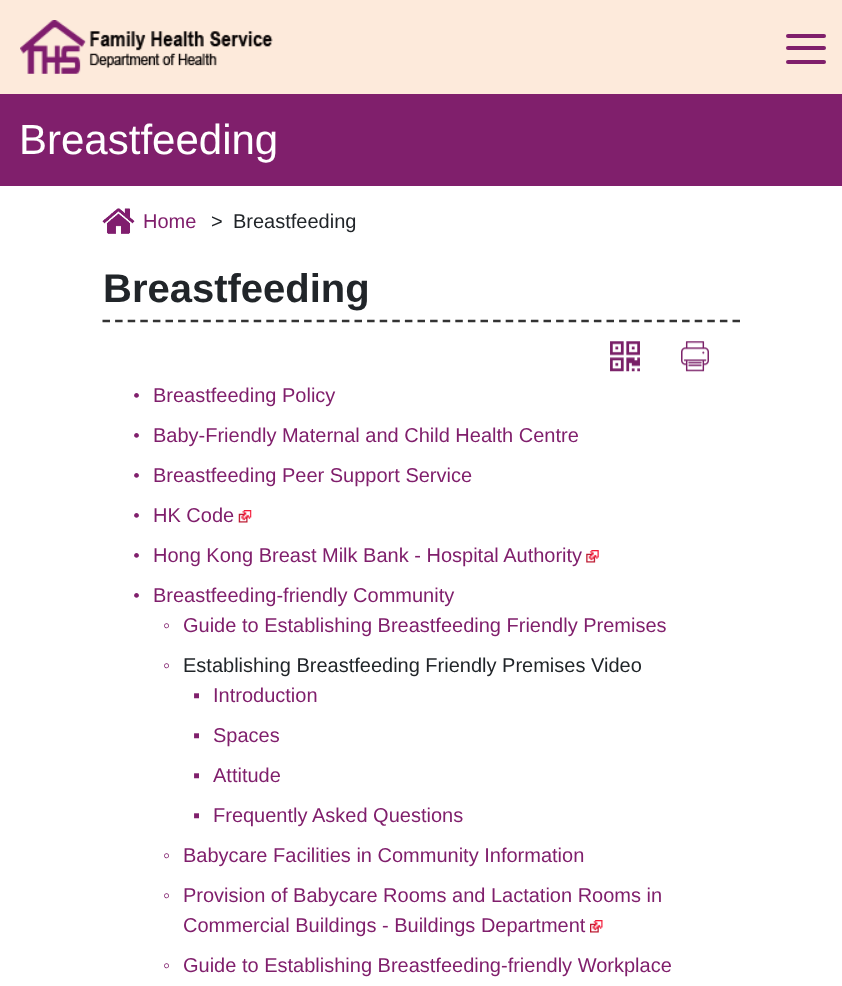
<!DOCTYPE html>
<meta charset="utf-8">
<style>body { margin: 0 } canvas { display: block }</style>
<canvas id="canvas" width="842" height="986"></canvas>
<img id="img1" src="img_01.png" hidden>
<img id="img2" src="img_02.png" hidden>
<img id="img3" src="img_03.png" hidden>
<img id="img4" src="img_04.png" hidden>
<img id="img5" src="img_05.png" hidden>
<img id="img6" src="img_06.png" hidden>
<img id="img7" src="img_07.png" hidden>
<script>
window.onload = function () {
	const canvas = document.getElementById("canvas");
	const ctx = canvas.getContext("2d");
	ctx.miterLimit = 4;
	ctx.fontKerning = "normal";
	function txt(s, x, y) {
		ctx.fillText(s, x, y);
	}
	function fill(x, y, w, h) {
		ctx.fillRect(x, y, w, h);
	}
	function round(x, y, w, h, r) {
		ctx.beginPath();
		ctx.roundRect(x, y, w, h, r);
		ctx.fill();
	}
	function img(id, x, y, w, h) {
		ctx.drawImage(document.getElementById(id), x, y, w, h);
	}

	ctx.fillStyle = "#FDEADB";
	fill(0, 0, 842, 986);
	img("img1", 20, 20, 253, 54);
	ctx.fillStyle = "#801F6B";
	round(786, 34, 40, 4, 2);
	round(786, 46, 40, 4, 2);
	round(786, 60, 40, 4, 2);
	ctx.fillStyle = "#801F6C";
	fill(0, 94, 842, 92);
	ctx.fillStyle = "#FFFFFF";
	fill(0, 186, 842, 800);
	img("img2", 102, 208, 33, 26);
	ctx.beginPath();
	ctx.moveTo(102.5, 321);
	ctx.lineTo(740, 321);
	ctx.strokeStyle = "#333333";
	ctx.lineWidth = 2.5;
	ctx.setLineDash([7.5, 5.1]);
	ctx.stroke();
	img("img3", 610, 341, 30, 31);
	img("img4", 681, 341, 28, 31);
	img("img5", 238, 510, 14, 13);
	img("img6", 586, 550, 13, 13);
	img("img7", 590, 920, 13, 13);
	ctx.font = "42px Liberation Sans";
	txt("Breastfeeding", 19, 154);
	ctx.font = "20px Liberation Sans";
	ctx.fillStyle = "#801F6C";
	txt("Home", 143, 228);
	ctx.fillStyle = "#212529";
	txt(">", 211, 228);
	txt("Breastfeeding", 233, 228);
	ctx.font = "bold 40px Liberation Sans";
	txt("Breastfeeding", 103, 302);
	ctx.font = "20px Liberation Serif";
	ctx.fillStyle = "#801F6C";
	txt("•", 133, 402);
	ctx.font = "20px Liberation Sans";
	txt("Breastfeeding Policy", 153, 402);
	ctx.font = "20px Liberation Serif";
	txt("•", 133, 442);
	ctx.font = "20px Liberation Sans";
	txt("Baby-Friendly Maternal and Child Health Centre", 153, 442);
	ctx.font = "20px Liberation Serif";
	txt("•", 133, 482);
	ctx.font = "20px Liberation Sans";
	txt("Breastfeeding Peer Support Service", 153, 482);
	ctx.font = "20px Liberation Serif";
	txt("•", 133, 522);
	ctx.font = "20px Liberation Sans";
	txt("HK Code", 153, 522);
	ctx.font = "20px Liberation Serif";
	txt("•", 133, 562);
	ctx.font = "20px Liberation Sans";
	txt("Hong Kong Breast Milk Bank - Hospital Authority", 153, 562);
	ctx.font = "20px Liberation Serif";
	txt("•", 133, 602);
	ctx.font = "20px Liberation Sans";
	txt("Breastfeeding-friendly Community", 153, 602);
	ctx.font = "20px Liberation Serif";
	txt("◦", 163, 632);
	ctx.font = "20px Liberation Sans";
	txt("Guide to Establishing Breastfeeding Friendly Premises", 183, 632);
	ctx.font = "20px Liberation Serif";
	txt("◦", 163, 672);
	ctx.font = "20px Liberation Sans";
	ctx.fillStyle = "#212529";
	txt("Establishing Breastfeeding Friendly Premises Video", 183, 672);
	ctx.font = "20px Liberation Serif";
	ctx.fillStyle = "#801F6C";
	txt("▪", 193, 702);
	ctx.font = "20px Liberation Sans";
	txt("Introduction", 213, 702);
	ctx.font = "20px Liberation Serif";
	txt("▪", 193, 742);
	ctx.font = "20px Liberation Sans";
	txt("Spaces", 213, 742);
	ctx.font = "20px Liberation Serif";
	txt("▪", 193, 782);
	ctx.font = "20px Liberation Sans";
	txt("Attitude", 213, 782);
	ctx.font = "20px Liberation Serif";
	txt("▪", 193, 822);
	ctx.font = "20px Liberation Sans";
	txt("Frequently Asked Questions", 213, 822);
	ctx.font = "20px Liberation Serif";
	txt("◦", 163, 862);
	ctx.font = "20px Liberation Sans";
	txt("Babycare Facilities in Community Information", 183, 862);
	ctx.font = "20px Liberation Serif";
	txt("◦", 163, 902);
	ctx.font = "20px Liberation Sans";
	txt("Provision of Babycare Rooms and Lactation Rooms in", 183, 902);
	txt("Commercial Buildings - Buildings Department", 183, 932);
	ctx.font = "20px Liberation Serif";
	txt("◦", 163, 972);
	ctx.font = "20px Liberation Sans";
	txt("Guide to Establishing Breastfeeding-friendly Workplace", 183, 972);
};
</script>
